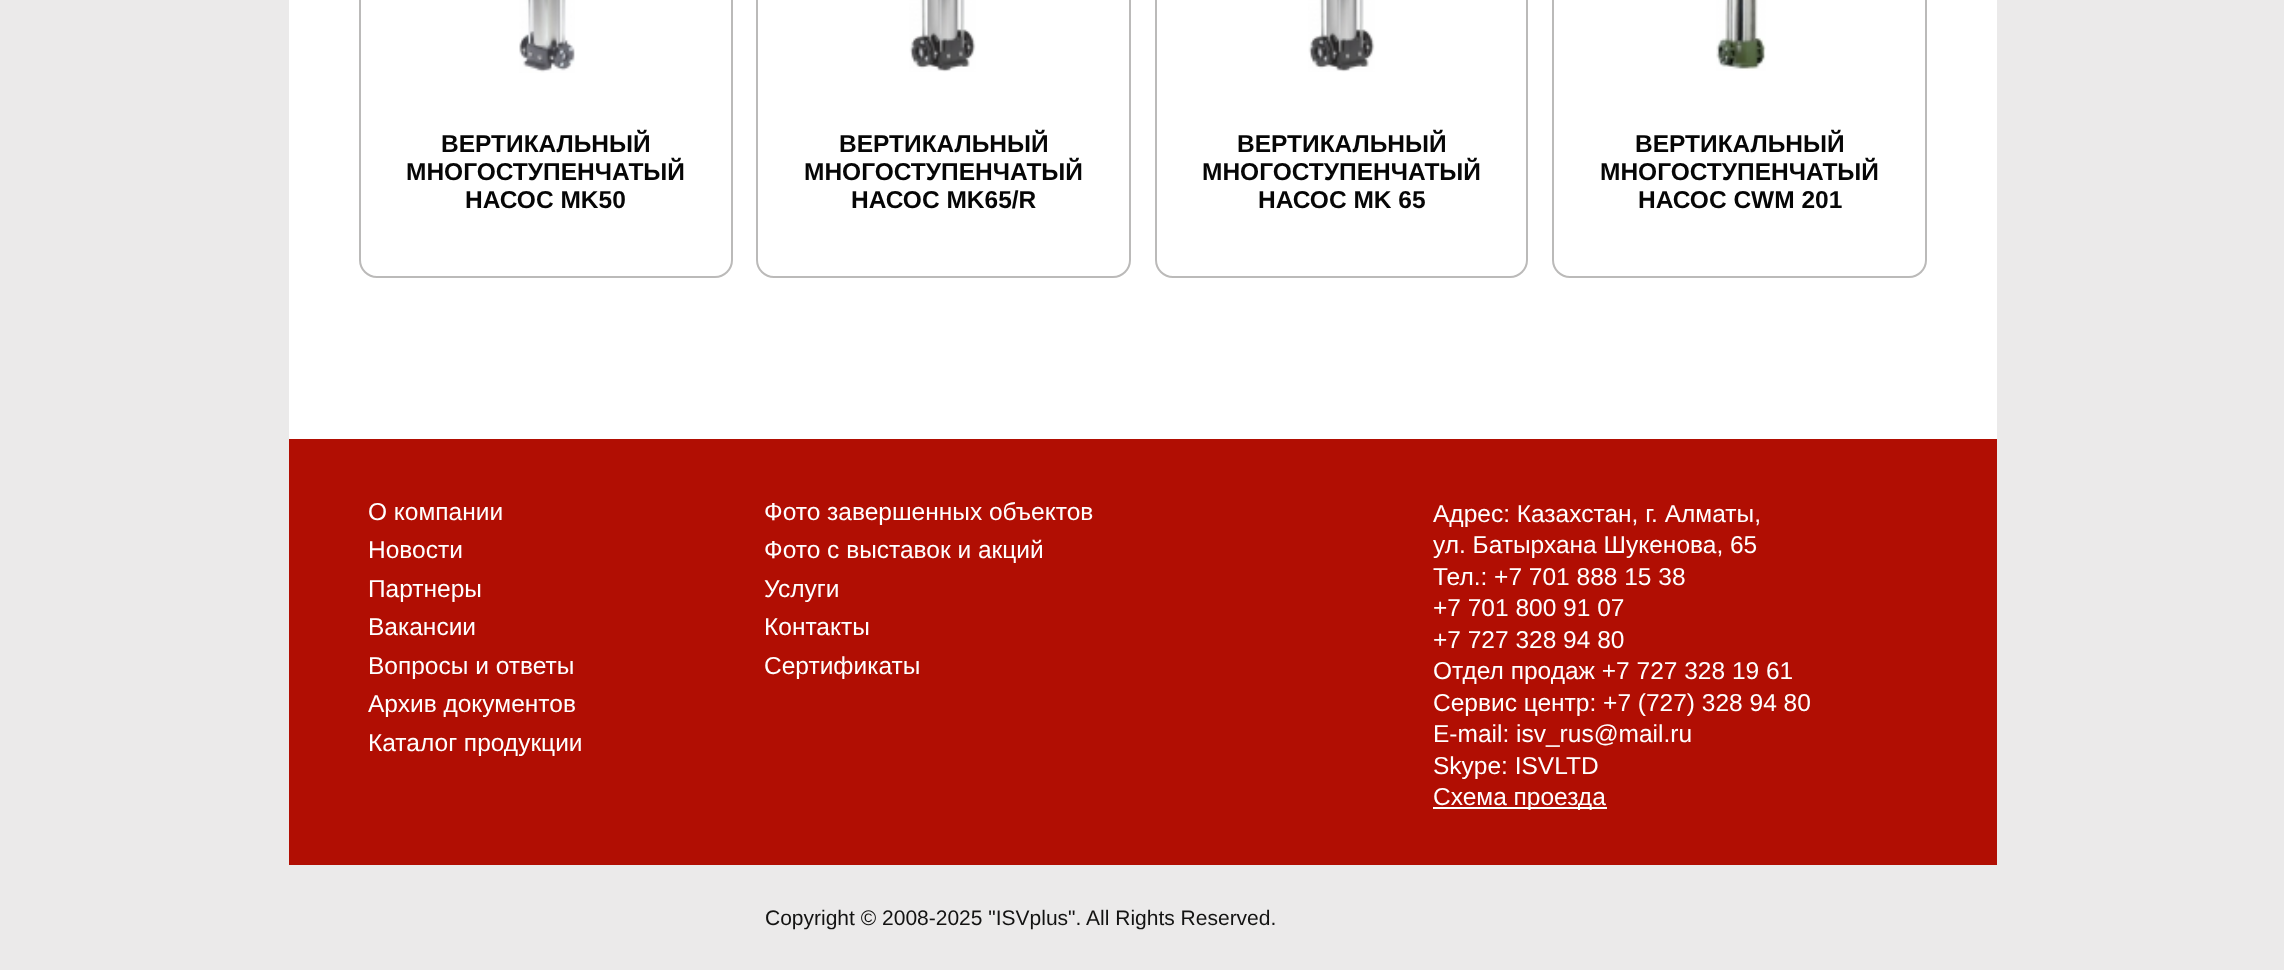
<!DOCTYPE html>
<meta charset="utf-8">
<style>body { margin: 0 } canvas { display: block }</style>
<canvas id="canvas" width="2284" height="970"></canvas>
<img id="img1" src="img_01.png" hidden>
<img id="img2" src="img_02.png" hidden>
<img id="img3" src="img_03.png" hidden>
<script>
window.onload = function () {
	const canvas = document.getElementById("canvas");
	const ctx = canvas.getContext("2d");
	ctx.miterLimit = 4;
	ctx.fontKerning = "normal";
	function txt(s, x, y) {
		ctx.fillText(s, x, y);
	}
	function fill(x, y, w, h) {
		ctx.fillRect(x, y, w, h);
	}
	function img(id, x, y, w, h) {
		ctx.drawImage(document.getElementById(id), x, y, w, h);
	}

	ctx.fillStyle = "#EBEAEA";
	fill(0, 0, 2284, 970);
	ctx.fillStyle = "#FFFFFF";
	fill(289, 0, 1708, 439);
	ctx.beginPath();
	ctx.roundRect(360, -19, 372, 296, 17);
	ctx.strokeStyle = "#BBBAB9";
	ctx.lineWidth = 2;
	ctx.stroke();
	img("img1", 519, 0, 56, 73);
	ctx.beginPath();
	ctx.roundRect(757, -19, 373, 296, 17);
	ctx.stroke();
	img("img2", 909, 0, 67, 72);
	ctx.beginPath();
	ctx.roundRect(1156, -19, 371, 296, 17);
	ctx.stroke();
	img("img2", 1308, 0, 67, 72);
	ctx.beginPath();
	ctx.roundRect(1553, -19, 373, 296, 17);
	ctx.stroke();
	img("img3", 1716, 0, 50, 71);
	ctx.fillStyle = "#B10E03";
	fill(289, 439, 1708, 426);
	ctx.fillStyle = "#FFFFFF";
	fill(1433, 807, 174, 2);
	ctx.font = "bold 24.5px Liberation Sans";
	ctx.fillStyle = "#060606";
	txt("ВЕРТИКАЛЬНЫЙ", 441, 152);
	txt("МНОГОСТУПЕНЧАТЫЙ", 406, 180);
	txt("НАСОС MK50", 465, 208);
	txt("ВЕРТИКАЛЬНЫЙ", 839, 152);
	txt("МНОГОСТУПЕНЧАТЫЙ", 804, 180);
	txt("НАСОС MK65/R", 851, 208);
	txt("ВЕРТИКАЛЬНЫЙ", 1237, 152);
	txt("МНОГОСТУПЕНЧАТЫЙ", 1202, 180);
	txt("НАСОС MK 65", 1258, 208);
	txt("ВЕРТИКАЛЬНЫЙ", 1635, 152);
	txt("МНОГОСТУПЕНЧАТЫЙ", 1600, 180);
	txt("НАСОС CWM 201", 1638, 208);
	ctx.font = "24.5px Liberation Sans";
	ctx.fillStyle = "#FFFFFF";
	txt("О компании", 368, 520);
	txt("Новости", 368, 558);
	txt("Партнеры", 368, 597);
	txt("Вакансии", 368, 635);
	txt("Вопросы и ответы", 368, 674);
	txt("Архив документов", 368, 712);
	txt("Каталог продукции", 368, 751);
	txt("Фото завершенных объектов", 764, 520);
	txt("Фото с выставок и акций", 764, 558);
	txt("Услуги", 764, 597);
	txt("Контакты", 764, 635);
	txt("Сертификаты", 764, 674);
	txt("Адрес: Казахстан, г. Алматы,", 1433, 522);
	txt("ул. Батырхана Шукенова, 65", 1433, 553);
	txt("Тел.: +7 701 888 15 38", 1433, 585);
	txt("+7 701 800 91 07", 1433, 616);
	txt("+7 727 328 94 80", 1433, 648);
	txt("Отдел продаж +7 727 328 19 61", 1433, 679);
	txt("Сервис центр: +7 (727) 328 94 80", 1433, 711);
	txt("E-mail: isv_rus@mail.ru", 1433, 742);
	txt("Skype: ISVLTD", 1433, 774);
	txt("Схема проезда", 1433, 805);
	ctx.font = "21px Liberation Sans";
	ctx.fillStyle = "#131312";
	txt("Copyright © 2008-2025 \"ISVplus\". All Rights Reserved.", 765, 925);
};
</script>
